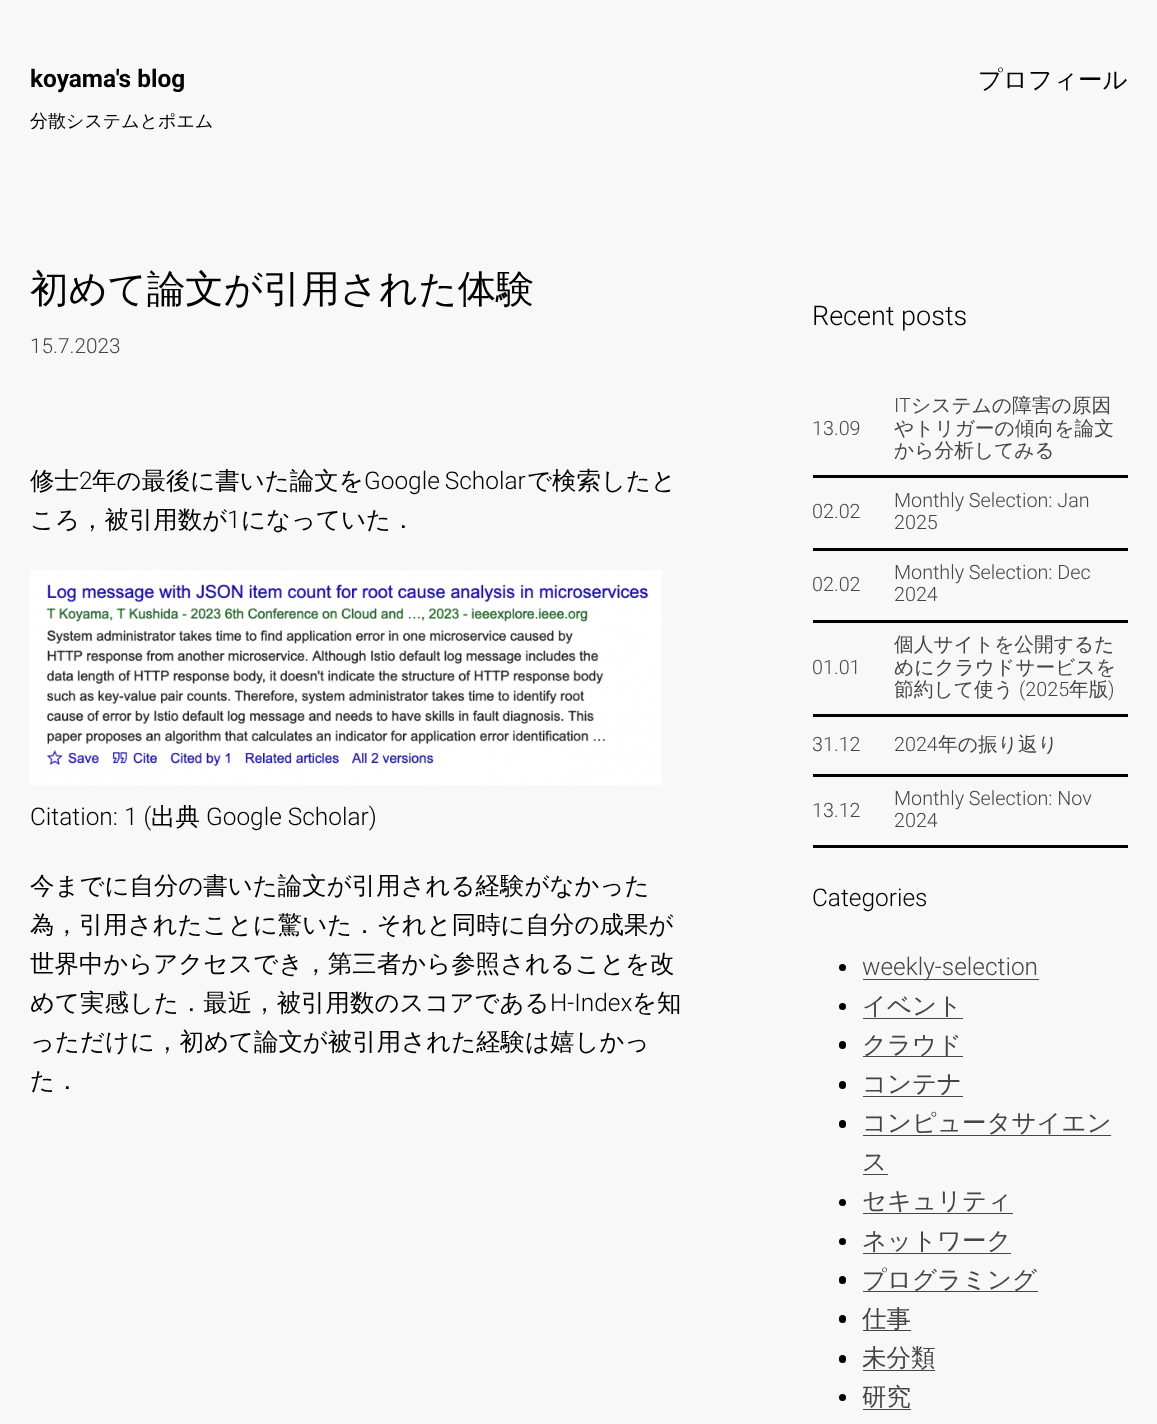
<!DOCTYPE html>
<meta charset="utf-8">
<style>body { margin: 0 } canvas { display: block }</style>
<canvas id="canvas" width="1157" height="1424"></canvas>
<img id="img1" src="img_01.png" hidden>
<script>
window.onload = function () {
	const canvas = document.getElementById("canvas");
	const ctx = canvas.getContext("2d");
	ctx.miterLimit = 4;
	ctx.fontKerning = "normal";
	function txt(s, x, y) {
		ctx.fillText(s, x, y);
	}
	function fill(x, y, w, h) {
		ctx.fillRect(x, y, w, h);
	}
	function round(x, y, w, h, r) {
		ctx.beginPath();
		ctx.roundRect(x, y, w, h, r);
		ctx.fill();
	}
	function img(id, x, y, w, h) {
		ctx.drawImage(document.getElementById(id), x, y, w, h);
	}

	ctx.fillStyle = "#F8F8F8";
	fill(0, 0, 1157, 1424);
	img("img1", 30, 570, 632, 215);
	ctx.fillStyle = "#000000";
	fill(813, 475, 315, 3);
	fill(813, 548, 315, 3);
	fill(813, 620, 315, 3);
	fill(813, 714, 315, 3);
	fill(813, 774, 315, 3);
	fill(813, 845, 315, 3);
	ctx.beginPath();
	ctx.arc(842.5, 967.5, 3.5, 0, Math.PI * 2);
	ctx.fill();
	ctx.fillStyle = "#454545";
	fill(863, 979, 176, 1);
	ctx.fillStyle = "#000000";
	ctx.beginPath();
	ctx.arc(842.5, 1006.5, 3.5, 0, Math.PI * 2);
	ctx.fill();
	ctx.fillStyle = "#454545";
	fill(863, 1018, 100, 1);
	ctx.fillStyle = "#000000";
	round(839, 1041, 7, 8, 3.5);
	ctx.fillStyle = "#454545";
	fill(863, 1056, 100, 1);
	ctx.fillStyle = "#000000";
	round(839, 1081, 7, 8, 3.5);
	ctx.fillStyle = "#454545";
	fill(863, 1096, 100, 1);
	ctx.fillStyle = "#000000";
	round(839, 1120, 7, 8, 3.5);
	ctx.fillStyle = "#454545";
	fill(863, 1135, 248, 1);
	fill(863, 1174, 25, 1);
	ctx.fillStyle = "#000000";
	ctx.beginPath();
	ctx.arc(842.5, 1202.5, 3.5, 0, Math.PI * 2);
	ctx.fill();
	ctx.fillStyle = "#454545";
	fill(863, 1213, 150, 1);
	ctx.fillStyle = "#000000";
	ctx.beginPath();
	ctx.arc(842.5, 1241.5, 3.5, 0, Math.PI * 2);
	ctx.fill();
	ctx.fillStyle = "#454545";
	fill(863, 1253, 148, 1);
	ctx.fillStyle = "#000000";
	round(839, 1276, 7, 8, 3.5);
	ctx.fillStyle = "#454545";
	fill(863, 1291, 175, 1);
	ctx.fillStyle = "#000000";
	round(839, 1315, 7, 8, 3.5);
	ctx.fillStyle = "#454545";
	fill(863, 1330, 48, 1);
	ctx.fillStyle = "#000000";
	round(839, 1355, 7, 8, 3.5);
	ctx.fillStyle = "#454545";
	fill(863, 1370, 72, 1);
	ctx.fillStyle = "#000000";
	ctx.beginPath();
	ctx.arc(842.5, 1397.5, 3.5, 0, Math.PI * 2);
	ctx.fill();
	ctx.fillStyle = "#454545";
	fill(863, 1409, 48, 1);
	ctx.font = "bold 24.45px Roboto";
	ctx.fillStyle = "#000000";
	txt("koyama's blog", 30, 87);
	ctx.font = "500 24.45px WenQuanYi Zen Hei";
	txt("プロフィール", 978, 88);
	ctx.font = "500 18px WenQuanYi Zen Hei";
	txt("分散システムとポエム", 30, 127);
	ctx.font = "500 38.4px WenQuanYi Zen Hei";
	txt("初めて論文が引用された体験", 30, 302);
	ctx.font = "300 20.75px Roboto";
	ctx.fillStyle = "#454545";
	txt("15.7.2023", 30, 353);
	ctx.font = "500 24.45px WenQuanYi Zen Hei";
	ctx.fillStyle = "#000000";
	txt("修士", 30, 489);
	ctx.font = "300 24.45px Roboto";
	txt("2", 79, 489);
	ctx.font = "500 24.45px WenQuanYi Zen Hei";
	txt("年の最後に書いた論文を", 92, 489);
	ctx.wordSpacing = "-1px";
	ctx.font = "300 24.45px Roboto";
	txt("Google Scholar", 364, 489);
	ctx.wordSpacing = "0px";
	ctx.font = "500 24.45px WenQuanYi Zen Hei";
	txt("で検索したと", 527, 489);
	txt("ころ，被引用数が", 30, 528);
	ctx.font = "300 24.45px Roboto";
	txt("1", 227, 528);
	ctx.font = "500 24.45px WenQuanYi Zen Hei";
	txt("になっていた．", 241, 528);
	ctx.font = "300 24.45px Roboto";
	txt("Citation: 1 (", 30, 825);
	ctx.font = "500 24.45px WenQuanYi Zen Hei";
	txt("出典", 151, 825);
	ctx.font = "300 24.45px Roboto";
	txt("Google Scholar)", 206, 825);
	ctx.font = "500 24.45px WenQuanYi Zen Hei";
	txt("今までに自分の書いた論文が引用される経験がなかった", 30, 894);
	txt("為，引用されたことに驚いた．それと同時に自分の成果が", 30, 933);
	txt("世界中からアクセスでき，第三者から参照されることを改", 30, 972);
	txt("めて実感した．最近，被引用数のスコアである", 30, 1011);
	ctx.font = "300 24.45px Roboto";
	txt("H-Index", 550, 1011);
	ctx.font = "500 24.45px WenQuanYi Zen Hei";
	txt("を知", 632, 1011);
	txt("っただけに，初めて論文が被引用された経験は嬉しかっ", 30, 1050);
	txt("た．", 30, 1089);
	ctx.font = "300 27px Roboto";
	txt("Recent posts", 812, 325);
	ctx.font = "300 19.75px Roboto";
	ctx.fillStyle = "#454545";
	txt("13.09", 812, 435);
	txt("IT", 894, 412);
	ctx.font = "500 19.75px WenQuanYi Zen Hei";
	txt("システムの障害の原因", 911, 412);
	txt("やトリガーの傾向を論文", 894, 435);
	txt("から分析してみる", 894, 457);
	ctx.font = "300 19.75px Roboto";
	txt("02.02", 812, 518);
	txt("Monthly Selection: Jan", 894, 507);
	txt("2025", 894, 529);
	txt("02.02", 812, 591);
	txt("Monthly Selection: Dec", 894, 579);
	txt("2024", 894, 601);
	txt("01.01", 812, 674);
	ctx.font = "500 19.75px WenQuanYi Zen Hei";
	txt("個人サイトを公開するた", 894, 651);
	txt("めにクラウドサービスを", 894, 674);
	txt("節約して使う", 894, 696);
	ctx.font = "300 19.75px Roboto";
	txt("(2025", 1019, 696);
	ctx.font = "500 19.75px WenQuanYi Zen Hei";
	txt("年版", 1069, 696);
	ctx.font = "300 19.75px Roboto";
	txt(")", 1108, 696);
	txt("31.12", 812, 751);
	txt("2024", 894, 751);
	ctx.font = "500 19.75px WenQuanYi Zen Hei";
	txt("年の振り返り", 938, 751);
	ctx.font = "300 19.75px Roboto";
	txt("13.12", 812, 817);
	txt("Monthly Selection: Nov", 894, 805);
	txt("2024", 894, 827);
	ctx.font = "300 24.45px Roboto";
	ctx.fillStyle = "#000000";
	txt("Categories", 812, 906);
	ctx.fillStyle = "#454545";
	txt("weekly-selection", 862, 975);
	ctx.font = "500 24.45px WenQuanYi Zen Hei";
	txt("イベント", 862, 1014);
	txt("クラウド", 862, 1053);
	txt("コンテナ", 862, 1092);
	txt("コンピュータサイエン", 862, 1131);
	txt("ス", 862, 1170);
	txt("セキュリティ", 862, 1209);
	txt("ネットワーク", 862, 1249);
	txt("プログラミング", 862, 1288);
	txt("仕事", 862, 1327);
	txt("未分類", 862, 1366);
	txt("研究", 862, 1405);
};
</script>
